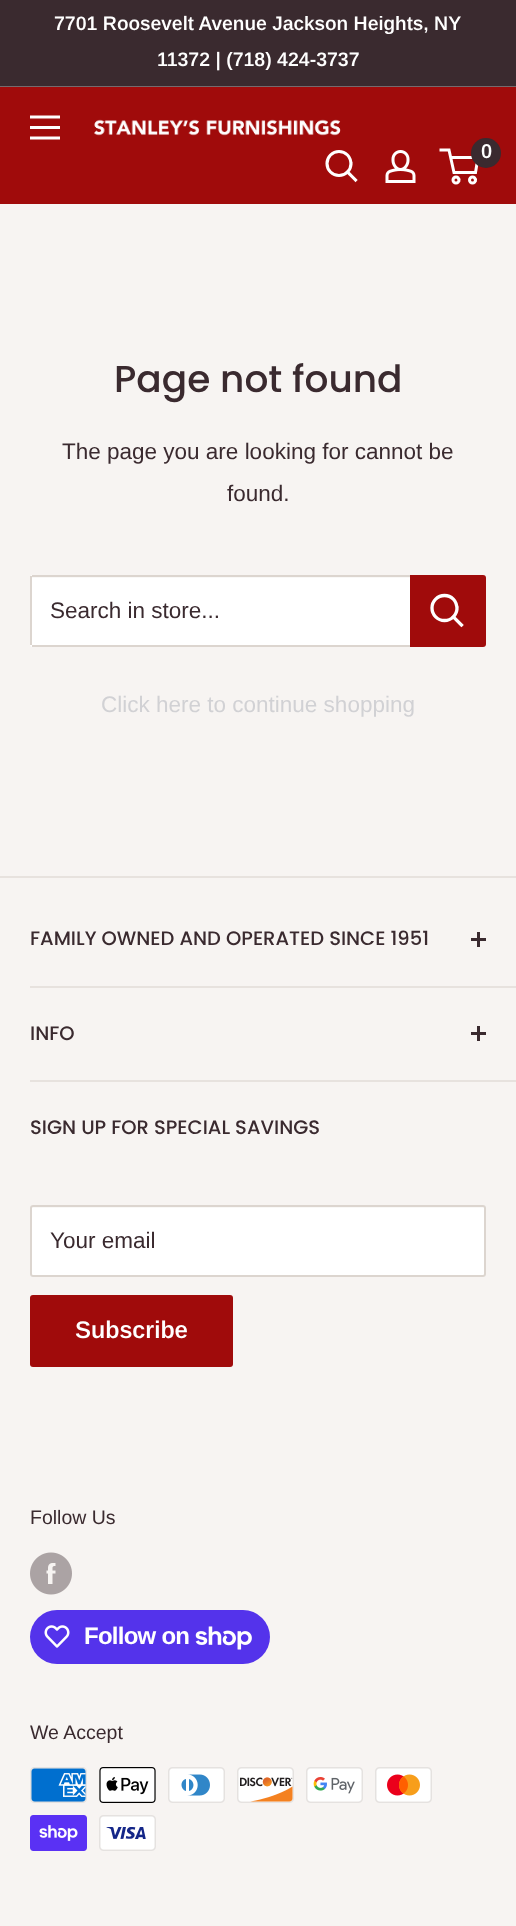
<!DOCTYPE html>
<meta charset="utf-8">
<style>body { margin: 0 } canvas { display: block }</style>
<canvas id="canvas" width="516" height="1926"></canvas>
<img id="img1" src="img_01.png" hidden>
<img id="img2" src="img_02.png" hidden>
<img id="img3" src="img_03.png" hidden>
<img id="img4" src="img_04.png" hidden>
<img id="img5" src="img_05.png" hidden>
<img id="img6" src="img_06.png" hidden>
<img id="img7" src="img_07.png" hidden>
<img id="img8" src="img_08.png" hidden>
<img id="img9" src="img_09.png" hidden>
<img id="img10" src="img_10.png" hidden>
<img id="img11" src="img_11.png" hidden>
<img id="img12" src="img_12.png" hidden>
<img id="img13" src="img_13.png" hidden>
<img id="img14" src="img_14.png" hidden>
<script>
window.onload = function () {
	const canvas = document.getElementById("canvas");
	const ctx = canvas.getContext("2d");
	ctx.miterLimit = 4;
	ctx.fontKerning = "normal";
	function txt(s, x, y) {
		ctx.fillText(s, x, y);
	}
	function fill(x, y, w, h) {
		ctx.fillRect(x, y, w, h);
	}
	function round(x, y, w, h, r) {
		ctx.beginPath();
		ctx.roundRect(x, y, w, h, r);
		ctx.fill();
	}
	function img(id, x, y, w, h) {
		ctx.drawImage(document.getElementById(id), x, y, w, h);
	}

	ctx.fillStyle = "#F7F4F2";
	fill(0, 0, 516, 1926);
	ctx.fillStyle = "#3A2A2F";
	fill(0, 0, 516, 86);
	ctx.fillStyle = "#756A6D";
	fill(0, 86, 516, 1);
	ctx.fillStyle = "#A00B0B";
	fill(0, 87, 516, 117);
	img("img1", 30, 115, 30, 25);
	img("img2", 94, 119, 247, 17);
	ctx.beginPath();
	ctx.moveTo(355.5, 180);
	ctx.lineTo(347.5, 172);
	ctx.strokeStyle = "#FFFFFF";
	ctx.lineWidth = 3.1;
	ctx.lineCap = "square";
	ctx.stroke();
	ctx.beginPath();
	ctx.arc(339, 163.5, 12, 0, Math.PI * 2);
	ctx.stroke();
	img("img3", 385, 150, 31, 33);
	ctx.beginPath();
	ctx.arc(456, 180, 3, 0, Math.PI * 2);
	ctx.lineWidth = 3;
	ctx.stroke();
	ctx.beginPath();
	ctx.arc(472.5, 180, 3, 0, Math.PI * 2);
	ctx.stroke();
	ctx.beginPath();
	ctx.moveTo(450.5, 157.5);
	ctx.lineTo(478, 157.5);
	ctx.lineTo(475.5, 172.5);
	ctx.lineTo(454, 172.5);
	ctx.lineTo(449, 150);
	ctx.lineTo(439.5, 150);
	ctx.lineCap = "butt";
	ctx.stroke();
	ctx.fillStyle = "#3A2A2F";
	ctx.beginPath();
	ctx.arc(486, 153, 15, 0, Math.PI * 2);
	ctx.fill();
	ctx.fillStyle = "#FFFFFF";
	ctx.beginPath();
	ctx.roundRect(30, 575, 380, 72, [3, 0, 0, 3]);
	ctx.fill();
	ctx.fillStyle = "#F9F8F7";
	ctx.beginPath();
	ctx.moveTo(33, 578);
	ctx.lineTo(410, 578);
	ctx.lineTo(410, 576);
	ctx.lineTo(34, 576);
	ctx.lineTo(32, 577);
	ctx.lineTo(32, 579);
	ctx.bezierCurveTo(32, 578, 32, 578, 33, 578);
	ctx.closePath();
	ctx.fill();
	ctx.fillStyle = "#DCD5CF";
	fill(32, 575, 378, 2);
	fill(32, 645, 378, 2);
	fill(30, 576, 2, 69);
	ctx.fillStyle = "#A00B0B";
	ctx.beginPath();
	ctx.roundRect(410, 575, 76, 72, [0, 3, 3, 0]);
	ctx.fill();
	ctx.beginPath();
	ctx.moveTo(461.5, 625);
	ctx.lineTo(453.5, 617);
	ctx.lineWidth = 3.3;
	ctx.lineCap = "square";
	ctx.stroke();
	ctx.beginPath();
	ctx.arc(444.5, 608, 12.5, 0, Math.PI * 2);
	ctx.stroke();
	ctx.fillStyle = "#E7E2DE";
	fill(0, 876, 516, 2);
	fill(30, 986, 486, 2);
	ctx.fillStyle = "#3A2A2F";
	fill(477, 932, 3, 15);
	fill(471, 938, 15, 3);
	ctx.fillStyle = "#E7E2DE";
	fill(30, 1080, 486, 2);
	ctx.fillStyle = "#3A2A2F";
	fill(477, 1026, 3, 15);
	fill(471, 1032, 15, 3);
	ctx.fillStyle = "#FFFFFF";
	round(30, 1205, 456, 72, 3);
	ctx.fillStyle = "#F9F8F7";
	ctx.beginPath();
	ctx.moveTo(33, 1208);
	ctx.lineTo(483, 1208);
	ctx.bezierCurveTo(484, 1208, 484, 1208, 484, 1209);
	ctx.lineTo(484, 1275);
	ctx.lineTo(485, 1274);
	ctx.lineTo(485, 1218);
	ctx.bezierCurveTo(485, 1216, 487, 1206, 484, 1206);
	ctx.lineTo(34, 1206);
	ctx.lineTo(32, 1206);
	ctx.lineTo(32, 1209);
	ctx.bezierCurveTo(32, 1208, 32, 1208, 33, 1208);
	ctx.closePath();
	ctx.fill();
	ctx.beginPath();
	ctx.roundRect(31, 1206, 454, 70, 2);
	ctx.strokeStyle = "#DCD5CF";
	ctx.lineWidth = 2;
	ctx.stroke();
	ctx.fillStyle = "#A00B0B";
	round(30, 1295, 203, 72, 3);
	img("img4", 30, 1552, 42, 43);
	ctx.fillStyle = "#5433EB";
	round(30, 1610, 240, 54, 27);
	img("img5", 44, 1625, 26, 23);
	img("img6", 195, 1626, 57, 24);
	img("img7", 30, 1767, 57, 36);
	img("img8", 99, 1767, 57, 36);
	img("img9", 168, 1767, 57, 36);
	img("img10", 237, 1767, 57, 36);
	img("img11", 306, 1767, 57, 36);
	img("img12", 375, 1767, 57, 36);
	img("img13", 30, 1815, 57, 36);
	img("img14", 99, 1815, 57, 36);
	ctx.font = "600 19.5px Arimo";
	ctx.fillStyle = "#FFFFFF";
	txt("7701 Roosevelt Avenue Jackson Heights, NY", 54, 30);
	txt("11372 | (718) 424-3737", 157, 66);
	ctx.font = "600 20px Arimo";
	txt("0", 481, 158);
	ctx.font = "500 37.5px Poppins";
	ctx.fillStyle = "#3A2A2F";
	txt("Page not found", 114, 392);
	ctx.font = "22.5px Arimo";
	txt("The page you are looking for cannot be", 62, 459);
	txt("found.", 227, 501);
	txt("Search in store...", 50, 618);
	ctx.fillStyle = "#D1D1D4";
	txt("Click here to continue shopping", 101, 712);
	ctx.font = "500 19.5px Poppins";
	ctx.fillStyle = "#3A2A2F";
	txt("FAMILY OWNED AND OPERATED SINCE 1951", 30, 945);
	txt("INFO", 30, 1040);
	txt("SIGN UP FOR SPECIAL SAVINGS", 30, 1134);
	ctx.font = "22.5px Arimo";
	txt("Your email", 50, 1248);
	ctx.font = "600 24px Arimo";
	ctx.fillStyle = "#FFFFFF";
	txt("Subscribe", 75, 1338);
	ctx.font = "19.5px Arimo";
	ctx.fillStyle = "#3A2A2F";
	txt("Follow Us", 30, 1524);
	ctx.letterSpacing = "-0.75px";
	ctx.font = "bold 24px Liberation Sans";
	ctx.fillStyle = "#FFFFFF";
	txt("Follow on", 84, 1644);
	ctx.letterSpacing = "0px";
	ctx.font = "19.5px Arimo";
	ctx.fillStyle = "#3A2A2F";
	txt("We Accept", 30, 1739);
};
</script>
